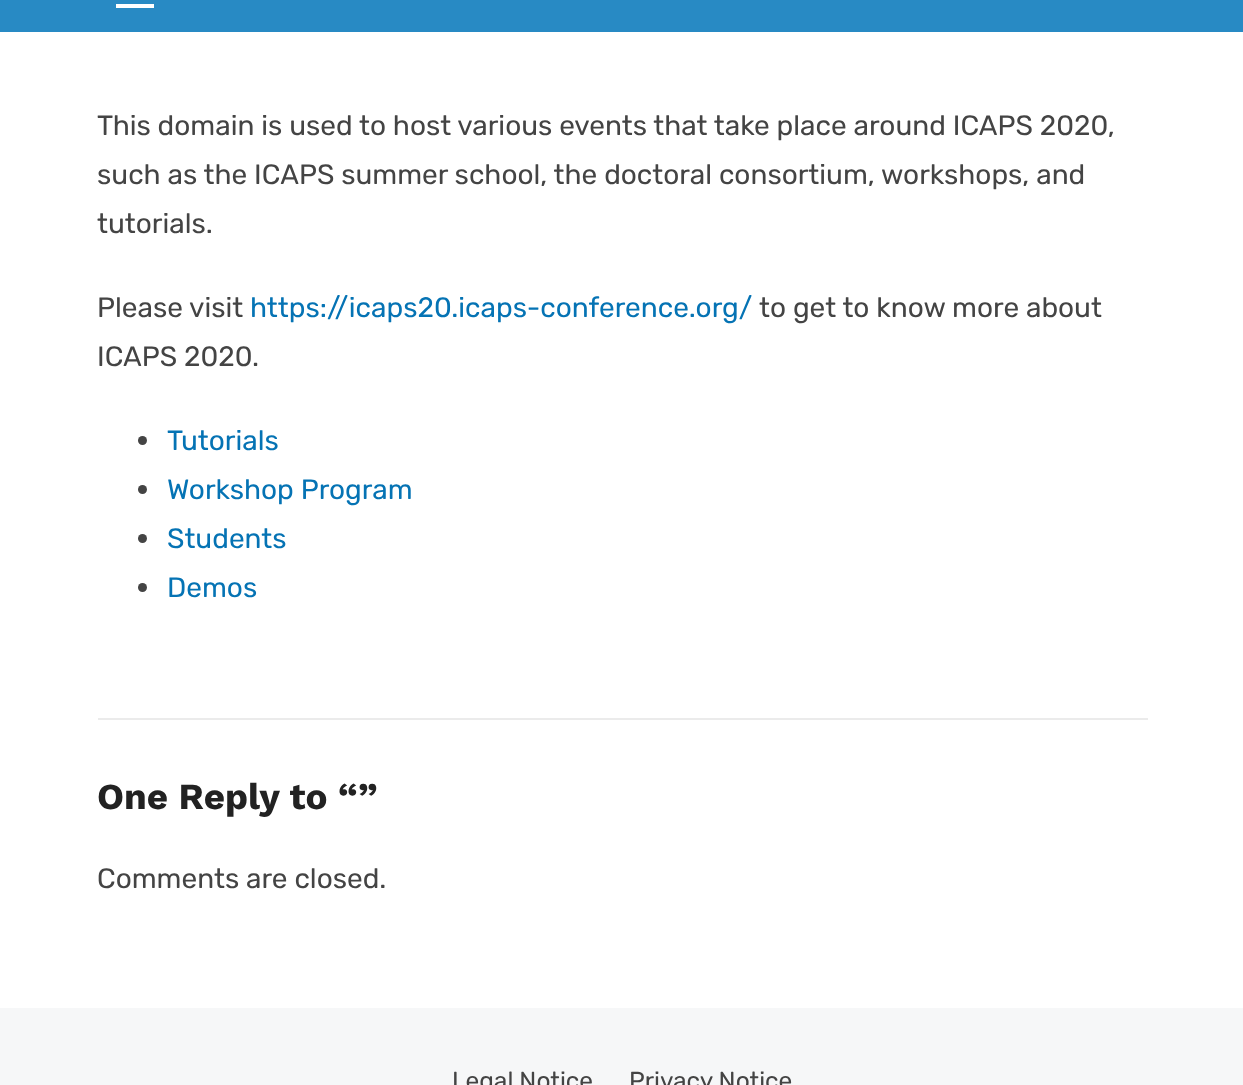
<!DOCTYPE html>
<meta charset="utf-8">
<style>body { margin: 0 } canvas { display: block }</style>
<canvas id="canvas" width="1243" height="1085"></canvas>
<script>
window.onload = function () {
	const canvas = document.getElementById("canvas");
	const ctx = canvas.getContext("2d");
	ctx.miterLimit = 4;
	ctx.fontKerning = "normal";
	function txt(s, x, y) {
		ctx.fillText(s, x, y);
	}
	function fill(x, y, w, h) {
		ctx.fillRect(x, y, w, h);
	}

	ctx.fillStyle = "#FFFFFF";
	fill(0, 0, 1243, 1085);
	ctx.fillStyle = "#288AC4";
	fill(0, 0, 1243, 32);
	ctx.fillStyle = "#FFFFFF";
	fill(116, 4, 38, 4);
	ctx.fillStyle = "#444444";
	ctx.beginPath();
	ctx.arc(142.5, 440.5, 4.5, 0, Math.PI * 2);
	ctx.fill();
	ctx.beginPath();
	ctx.arc(142.5, 489.5, 4.5, 0, Math.PI * 2);
	ctx.fill();
	ctx.beginPath();
	ctx.arc(142.5, 538.5, 4.5, 0, Math.PI * 2);
	ctx.fill();
	ctx.beginPath();
	ctx.arc(142.5, 587.5, 4.5, 0, Math.PI * 2);
	ctx.fill();
	ctx.fillStyle = "#EBEBEB";
	fill(98, 718, 1050, 2);
	ctx.fillStyle = "#F6F7F8";
	fill(0, 1008, 1243, 77);
	ctx.font = "300 28px Rubik";
	ctx.fillStyle = "#444444";
	txt("This domain is used to host various events that take place around ICAPS 2020,", 97, 135);
	txt("such as the ICAPS summer school, the doctoral consortium, workshops, and", 97, 184);
	txt("tutorials.", 97, 233);
	txt("Please visit", 97, 317);
	ctx.fillStyle = "#0573B4";
	txt("https://icaps20.icaps-conference.org/", 250, 317);
	ctx.fillStyle = "#444444";
	txt("to get to know more about", 759, 317);
	txt("ICAPS 2020.", 97, 366);
	ctx.fillStyle = "#0573B4";
	txt("Tutorials", 167, 450);
	txt("Workshop Program", 167, 499);
	txt("Students", 167, 548);
	txt("Demos", 167, 597);
	ctx.font = "bold 36.75px Work Sans";
	ctx.fillStyle = "#222222";
	txt("One Reply to “”", 97, 809);
	ctx.font = "300 28px Rubik";
	ctx.fillStyle = "#444444";
	txt("Comments are closed.", 97, 888);
	ctx.font = "300 24.5px Rubik";
	txt("Legal Notice", 452, 1089);
	txt("Privacy Notice", 629, 1089);
};
</script>
